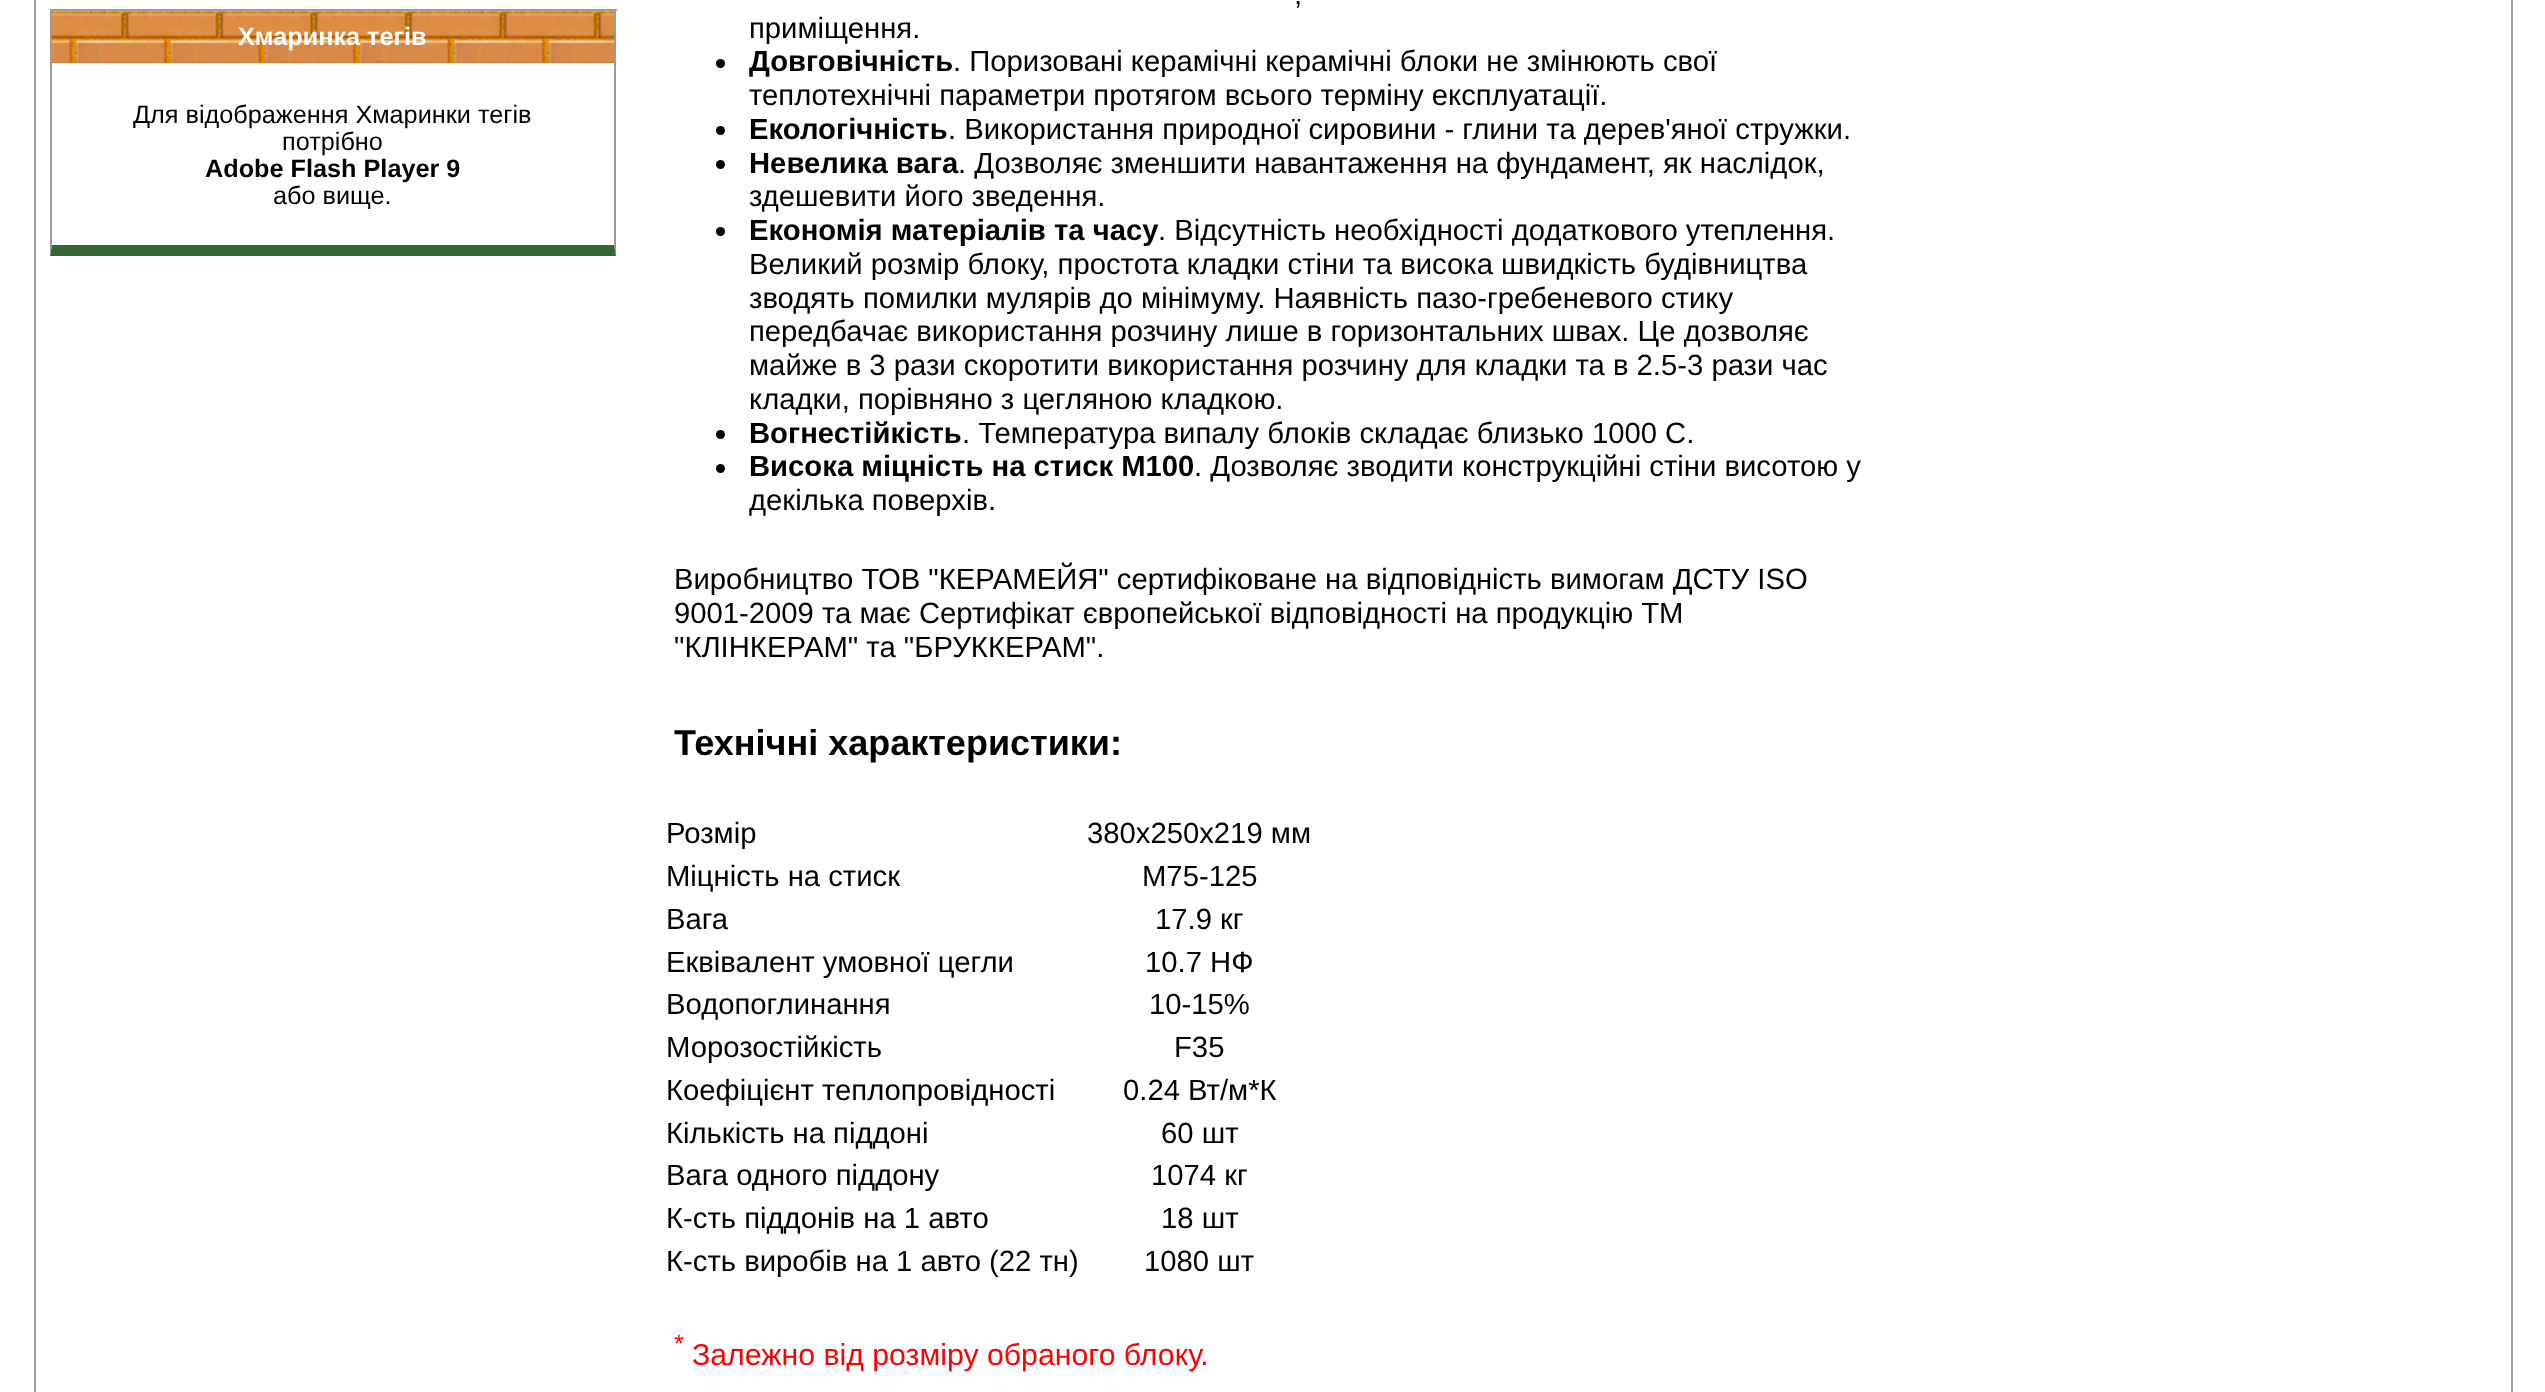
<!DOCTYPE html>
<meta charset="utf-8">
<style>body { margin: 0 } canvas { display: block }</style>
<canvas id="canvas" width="2545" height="1392"></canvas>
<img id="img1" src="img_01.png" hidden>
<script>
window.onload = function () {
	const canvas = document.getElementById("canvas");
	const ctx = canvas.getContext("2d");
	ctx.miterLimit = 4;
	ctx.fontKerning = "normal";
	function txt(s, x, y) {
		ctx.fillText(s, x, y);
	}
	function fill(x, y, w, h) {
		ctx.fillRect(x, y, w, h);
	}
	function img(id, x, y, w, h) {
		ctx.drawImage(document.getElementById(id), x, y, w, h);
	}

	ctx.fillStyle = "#FFFFFF";
	fill(0, 0, 2545, 1392);
	ctx.strokeStyle = "#9A9A9A";
	ctx.lineWidth = 2;
	ctx.strokeRect(35, -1, 2477, 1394);
	ctx.fillStyle = "#9A9A9A";
	fill(50, 9, 567, 2);
	ctx.beginPath();
	ctx.moveTo(616, 9);
	ctx.lineTo(616, 256);
	ctx.lineTo(614, 245);
	ctx.lineTo(614, 11);
	ctx.closePath();
	ctx.fill();
	ctx.fillStyle = "#336633";
	ctx.beginPath();
	ctx.moveTo(616, 256);
	ctx.lineTo(50, 256);
	ctx.lineTo(52, 245);
	ctx.lineTo(614, 245);
	ctx.closePath();
	ctx.fill();
	ctx.fillStyle = "#9A9A9A";
	ctx.beginPath();
	ctx.moveTo(50, 256);
	ctx.lineTo(50, 9);
	ctx.lineTo(52, 11);
	ctx.lineTo(52, 245);
	ctx.closePath();
	ctx.fill();
	img("img1", 51, 11, 564, 52);
	ctx.fillStyle = "#000000";
	ctx.beginPath();
	ctx.arc(720.5, 63.5, 4.5, 0, Math.PI * 2);
	ctx.fill();
	ctx.beginPath();
	ctx.arc(720.5, 130.5, 4.5, 0, Math.PI * 2);
	ctx.fill();
	ctx.beginPath();
	ctx.arc(720.5, 164.5, 4.5, 0, Math.PI * 2);
	ctx.fill();
	ctx.beginPath();
	ctx.arc(720.5, 231.5, 4.5, 0, Math.PI * 2);
	ctx.fill();
	ctx.beginPath();
	ctx.arc(720.5, 434.5, 4.5, 0, Math.PI * 2);
	ctx.fill();
	ctx.beginPath();
	ctx.arc(720.5, 468.5, 4.5, 0, Math.PI * 2);
	ctx.fill();
	ctx.font = "bold 25.25px Liberation Sans";
	ctx.fillStyle = "#FFFFFF";
	txt("Хмаринка тегів", 238, 45);
	ctx.font = "25.25px Liberation Sans";
	ctx.fillStyle = "#000000";
	txt("Для відображення Хмаринки тегів", 133, 123);
	txt("потрібно", 282, 150);
	ctx.font = "bold 25.25px Liberation Sans";
	txt("Adobe Flash Player 9", 205, 177);
	ctx.font = "25.25px Liberation Sans";
	txt("або вище.", 273, 204);
	ctx.font = "29.25px Liberation Sans";
	txt(",", 1294, 4);
	txt("приміщення.", 749, 38);
	ctx.font = "bold 29.25px Liberation Sans";
	txt("Довговічність", 749, 71);
	ctx.font = "29.25px Liberation Sans";
	txt(". Поризовані керамічні керамічні блоки не змінюють свої", 953, 71);
	txt("теплотехнічні параметри протягом всього терміну експлуатації.", 749, 105);
	ctx.font = "bold 29.25px Liberation Sans";
	txt("Екологічність", 749, 139);
	ctx.font = "29.25px Liberation Sans";
	txt(". Використання природної сировини - глини та дерев'яної стружки.", 948, 139);
	ctx.font = "bold 29.25px Liberation Sans";
	txt("Невелика вага", 749, 173);
	ctx.font = "29.25px Liberation Sans";
	txt(". Дозволяє зменшити навантаження на фундамент, як наслідок,", 958, 173);
	txt("здешевити його зведення.", 749, 206);
	ctx.font = "bold 29.25px Liberation Sans";
	txt("Економія матеріалів та часу", 749, 240);
	ctx.font = "29.25px Liberation Sans";
	txt(". Відсутність необхідності додаткового утеплення.", 1158, 240);
	txt("Великий розмір блоку, простота кладки стіни та висока швидкість будівництва", 749, 274);
	txt("зводять помилки мулярів до мінімуму. Наявність пазо-гребеневого стику", 749, 308);
	txt("передбачає використання розчину лише в горизонтальних швах. Це дозволяє", 749, 341);
	txt("майже в 3 рази скоротити використання розчину для кладки та в 2.5-3 рази час", 749, 375);
	txt("кладки, порівняно з цегляною кладкою.", 749, 409);
	ctx.font = "bold 29.25px Liberation Sans";
	txt("Вогнестійкість", 749, 443);
	ctx.font = "29.25px Liberation Sans";
	txt(". Температура випалу блоків складає близько 1000 С.", 962, 443);
	ctx.font = "bold 29.25px Liberation Sans";
	txt("Висока міцність на стиск М100", 749, 476);
	ctx.font = "29.25px Liberation Sans";
	txt(". Дозволяє зводити конструкційні стіни висотою у", 1194, 476);
	txt("декілька поверхів.", 749, 510);
	txt("Виробництво ТОВ \"КЕРАМЕЙЯ\" сертифіковане на відповідність вимогам ДСТУ ISO", 674, 589);
	txt("9001-2009 та має Сертифікат європейської відповідності на продукцію ТМ", 674, 623);
	txt("\"КЛІНКЕРАМ\" та \"БРУККЕРАМ\".", 674, 657);
	ctx.font = "bold 36px Liberation Sans";
	txt("Технічні характеристики:", 674, 755);
	ctx.font = "29.25px Liberation Sans";
	txt("Розмір", 666, 843);
	txt("380х250х219 мм", 1087, 843);
	txt("Міцність на стиск", 666, 886);
	txt("М75-125", 1142, 886);
	txt("Вага", 666, 929);
	txt("17.9 кг", 1155, 929);
	txt("Еквівалент умовної цегли", 666, 972);
	txt("10.7 НФ", 1145, 972);
	txt("Водопоглинання", 666, 1014);
	txt("10-15%", 1149, 1014);
	txt("Морозостійкість", 666, 1057);
	txt("F35", 1174, 1057);
	txt("Коефіцієнт теплопровідності", 666, 1100);
	txt("0.24 Вт/м*К", 1123, 1100);
	txt("Кількість на піддоні", 666, 1143);
	txt("60 шт", 1161, 1143);
	txt("Вага одного піддону", 666, 1185);
	txt("1074 кг", 1151, 1185);
	txt("К-сть піддонів на 1 авто", 666, 1228);
	txt("18 шт", 1161, 1228);
	txt("К-сть виробів на 1 авто (22 тн)", 666, 1271);
	txt("1080 шт", 1144, 1271);
	ctx.font = "25.25px Liberation Sans";
	ctx.fillStyle = "#FF0000";
	txt("*", 674, 1352);
	ctx.font = "30.25px Liberation Sans";
	txt("Залежно від розміру обраного блоку.", 692, 1365);
};
</script>
